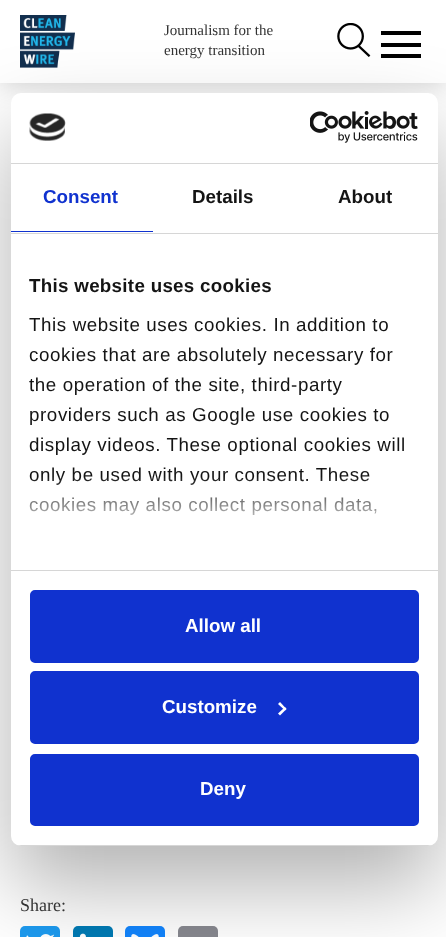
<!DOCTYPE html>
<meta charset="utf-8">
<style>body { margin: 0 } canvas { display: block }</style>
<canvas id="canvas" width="446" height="937"></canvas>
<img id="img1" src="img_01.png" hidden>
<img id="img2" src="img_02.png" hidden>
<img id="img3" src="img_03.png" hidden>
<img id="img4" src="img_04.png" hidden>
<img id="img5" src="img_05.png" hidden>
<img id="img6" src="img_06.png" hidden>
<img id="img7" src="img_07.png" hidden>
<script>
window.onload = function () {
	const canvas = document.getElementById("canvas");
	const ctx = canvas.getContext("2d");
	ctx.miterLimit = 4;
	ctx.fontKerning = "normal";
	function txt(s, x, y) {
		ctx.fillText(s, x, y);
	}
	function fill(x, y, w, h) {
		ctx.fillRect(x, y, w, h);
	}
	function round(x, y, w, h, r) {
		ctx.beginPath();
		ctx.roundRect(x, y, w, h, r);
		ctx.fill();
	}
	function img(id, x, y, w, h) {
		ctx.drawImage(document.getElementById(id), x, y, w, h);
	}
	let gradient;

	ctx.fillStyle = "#FFFFFF";
	fill(0, 0, 446, 937);
	ctx.fillStyle = "rgba(0, 0, 0, 0.17)";
	ctx.filter = "blur(12.5px)";
	ctx.beginPath();
	ctx.rect(0, 3, 446, 82);
	ctx.fill();
	ctx.filter = "none";
	ctx.fillStyle = "#FFFFFF";
	fill(0, 0, 446, 83);
	img("img1", 20, 15, 55, 53);
	img("img2", 337, 23, 34, 34);
	ctx.fillStyle = "#000000";
	fill(381, 31, 40, 4);
	fill(381, 43, 40, 4);
	fill(381, 54, 40, 4);
	ctx.fillStyle = "#1D9BF0";
	round(20, 926, 40, 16, 5);
	img("img3", 26, 934, 29, 3);
	ctx.fillStyle = "#007BB5";
	round(73, 926, 40, 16, 5);
	img("img4", 79, 933, 7, 4);
	ctx.fillStyle = "#1285FE";
	round(125, 926, 40, 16, 5);
	img("img5", 131, 934, 28, 3);
	ctx.fillStyle = "#888990";
	round(178, 926, 40, 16, 5);
	ctx.fillStyle = "rgba(0, 0, 0, 0.3)";
	ctx.filter = "blur(42.5px)";
	ctx.beginPath();
	ctx.roundRect(11, 133, 427, 753, 10);
	ctx.fill();
	ctx.filter = "none";
	ctx.fillStyle = "#FFFFFF";
	round(11, 93, 427, 753, 10);
	ctx.fillStyle = "#D6D6D6";
	fill(11, 163, 427, 1);
	img("img6", 29, 113, 37, 28);
	img("img7", 310, 111, 108, 32);
	fill(11, 233, 427, 1);
	ctx.fillStyle = "#1032CF";
	fill(11, 231, 142, 1);
	ctx.fillStyle = "#D6D6D6";
	fill(11, 570, 427, 1);
	ctx.save();
	ctx.beginPath();
	ctx.roundRect(11, 93, 427, 753, 10);
	ctx.clip();
	fill(11, 845, 427, 1);
	ctx.restore();
	ctx.fillStyle = "#1032CF";
	ctx.beginPath();
	ctx.roundRect(31.5, 591.5, 386, 70, 3.5);
	ctx.fill();
	ctx.strokeStyle = "#1032CF";
	ctx.lineWidth = 3;
	ctx.stroke();
	ctx.beginPath();
	ctx.roundRect(31.5, 672.5, 386, 70, 3.5);
	ctx.fill();
	ctx.stroke();
	ctx.fillStyle = "#FFFFFF";
	ctx.beginPath();
	ctx.moveTo(280, 702);
	ctx.lineTo(286.5, 709);
	ctx.lineTo(285, 710.5);
	ctx.lineTo(278, 704);
	ctx.closePath();
	ctx.fill();
	ctx.beginPath();
	ctx.moveTo(285, 707);
	ctx.lineTo(286.5, 709);
	ctx.lineTo(280, 715.5);
	ctx.lineTo(278, 713.5);
	ctx.closePath();
	ctx.fill();
	ctx.fillStyle = "#1032CF";
	ctx.beginPath();
	ctx.roundRect(31.5, 755.5, 386, 69, 3.5);
	ctx.fill();
	ctx.stroke();
	ctx.font = "15px Liberation Serif";
	ctx.fillStyle = "#333333";
	txt("Journalism for the", 164, 35);
	txt("energy transition", 164, 55);
	ctx.font = "18px Liberation Serif";
	txt("Share:", 20, 911);
	ctx.font = "bold 18.75px Liberation Sans";
	ctx.fillStyle = "#1032CF";
	txt("Consent", 43, 203);
	ctx.fillStyle = "#141414";
	txt("Details", 192, 203);
	txt("About", 338, 203);
	ctx.letterSpacing = "0.3px";
	txt("This website uses cookies", 29, 292);
	ctx.letterSpacing = "0.6px";
	ctx.font = "18.75px Liberation Sans";
	txt("This website uses cookies. In addition to", 29, 331);
	txt("cookies that are absolutely necessary for", 29, 361);
	txt("the operation of the site, third-party", 29, 391);
	txt("providers such as Google use cookies to", 29, 421);
	txt("display videos. These optional cookies will", 29, 451);
	txt("only be used with your consent. These", 29, 481);
	txt("cookies may also collect personal data,", 29, 511);
	gradient = ctx.createLinearGradient(216, 570, 216, 476);
	gradient.addColorStop(0, "#FFFFFF");
	gradient.addColorStop(0.5, "rgba(255, 255, 255, 0.8)");
	gradient.addColorStop(1, "rgba(255, 255, 255, 0)");
	ctx.fillStyle = gradient;
	fill(29, 477, 349, 38);
	ctx.letterSpacing = "0px";
	ctx.font = "bold 18.75px Liberation Sans";
	ctx.fillStyle = "#FFFFFF";
	txt("Allow all", 185, 632);
	txt("Customize", 162, 713);
	txt("Deny", 200, 795);
};
</script>
